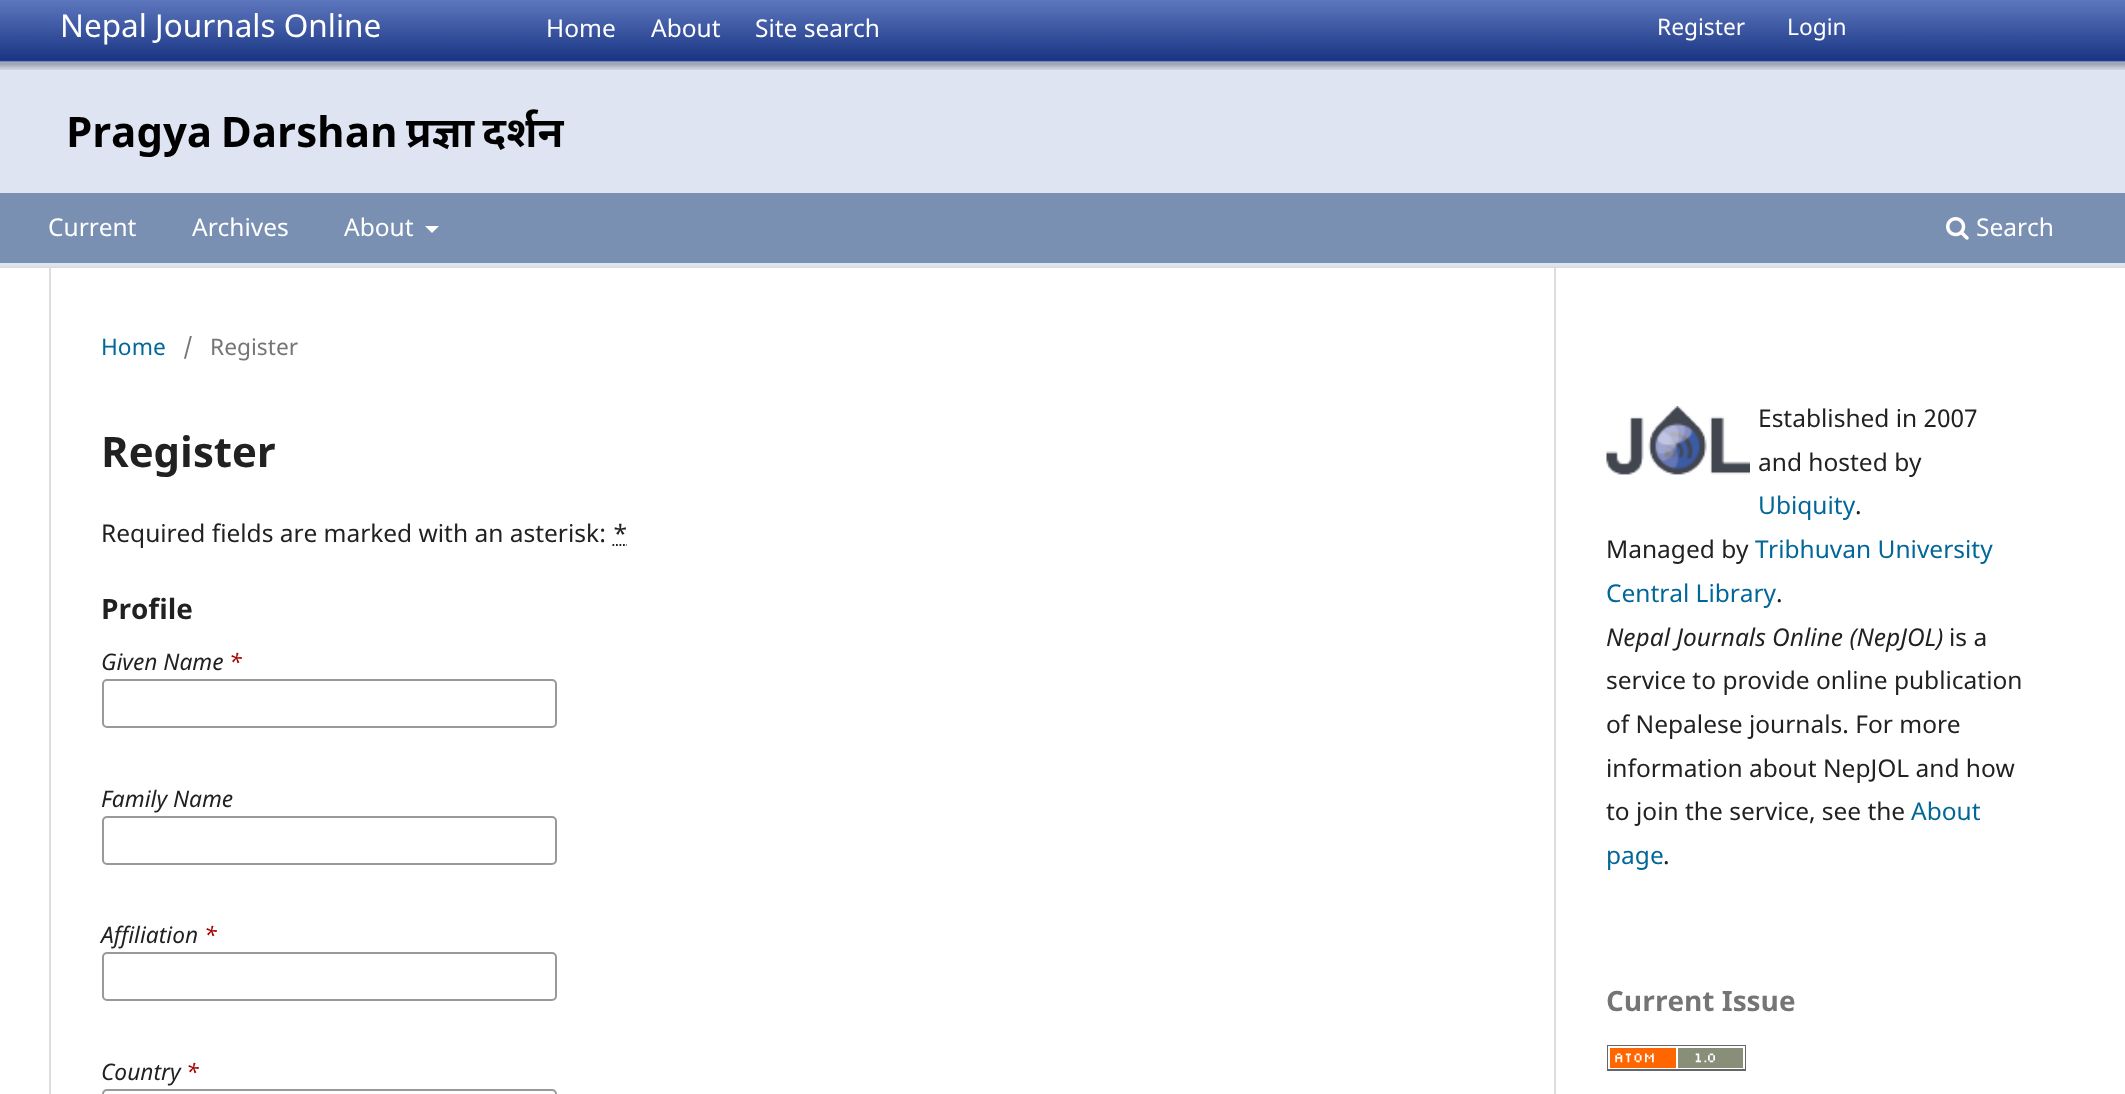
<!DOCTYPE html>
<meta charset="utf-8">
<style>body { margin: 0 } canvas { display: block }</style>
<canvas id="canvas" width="2125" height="1094"></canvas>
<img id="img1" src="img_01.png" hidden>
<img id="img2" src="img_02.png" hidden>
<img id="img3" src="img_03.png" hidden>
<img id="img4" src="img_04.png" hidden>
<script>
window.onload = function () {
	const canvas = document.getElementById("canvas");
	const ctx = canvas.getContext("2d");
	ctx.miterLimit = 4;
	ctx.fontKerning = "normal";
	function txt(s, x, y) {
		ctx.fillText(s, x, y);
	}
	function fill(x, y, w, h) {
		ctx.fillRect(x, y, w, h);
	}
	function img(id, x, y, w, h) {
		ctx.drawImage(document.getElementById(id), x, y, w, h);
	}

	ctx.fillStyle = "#FFFFFF";
	fill(0, 0, 2125, 1094);
	ctx.fillStyle = "#DFE4F2";
	fill(0, 70, 2125, 196);
	ctx.fillStyle = "#DDDDDD";
	fill(0, 266, 2125, 2);
	img("img1", 0, 0, 2125, 70);
	ctx.fillStyle = "#7990B2";
	fill(0, 193, 2125, 70);
	ctx.fillStyle = "#FFFFFF";
	ctx.beginPath();
	ctx.moveTo(425, 226);
	ctx.lineTo(439, 226);
	ctx.lineTo(432, 233);
	ctx.closePath();
	ctx.fill();
	img("img2", 1946, 217, 23, 23);
	ctx.fillStyle = "#DDDDDD";
	fill(49, 268, 2, 826);
	ctx.beginPath();
	ctx.moveTo(612.5, 545);
	ctx.lineTo(627, 545);
	ctx.strokeStyle = "#212121";
	ctx.lineWidth = 1.8;
	ctx.setLineDash([1.75, 1.75]);
	ctx.stroke();
	ctx.beginPath();
	ctx.roundRect(103, 680, 453, 47, 4);
	ctx.strokeStyle = "#999999";
	ctx.lineWidth = 2;
	ctx.setLineDash([]);
	ctx.stroke();
	ctx.beginPath();
	ctx.roundRect(103, 817, 453, 47, 4);
	ctx.stroke();
	ctx.beginPath();
	ctx.roundRect(103, 953, 453, 47, 4);
	ctx.stroke();
	ctx.beginPath();
	ctx.roundRect(103, 1090, 453, 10, 4);
	ctx.stroke();
	fill(1554, 268, 2, 826);
	img("img3", 1606, 406, 144, 69);
	img("img4", 1607, 1045, 139, 26);
	ctx.font = "31.5px Noto Sans";
	ctx.fillStyle = "#FFFFFF";
	txt("Nepal Journals Online", 60, 37);
	ctx.font = "24.5px Noto Sans";
	txt("Home", 546, 37);
	txt("About", 651, 37);
	txt("Site search", 755, 37);
	ctx.font = "22.75px Noto Sans";
	txt("Register", 1657, 35);
	txt("Login", 1787, 35);
	ctx.font = "24.5px Noto Sans";
	txt("Current", 48, 236);
	txt("Archives", 192, 236);
	txt("About", 344, 236);
	txt("Search", 1976, 236);
	ctx.wordSpacing = "-2.5px";
	ctx.font = "bold 42px Noto Sans";
	ctx.fillStyle = "#000000";
	txt("Pragya Darshan प्रज्ञा दर्शन", 66, 147);
	ctx.wordSpacing = "0px";
	ctx.font = "22.75px Noto Sans";
	ctx.fillStyle = "#006798";
	txt("Home", 101, 355);
	ctx.fillStyle = "#757575";
	txt("/", 183, 355);
	txt("Register", 210, 355);
	ctx.font = "bold 42px Noto Sans";
	ctx.fillStyle = "#212121";
	txt("Register", 101, 467);
	ctx.font = "24.5px Noto Sans";
	txt("Required fields are marked with an asterisk: *", 101, 542);
	ctx.font = "bold 28px Noto Sans";
	txt("Profile", 101, 619);
	ctx.font = "italic 22.75px Noto Sans";
	txt("Given Name", 101, 670);
	ctx.fillStyle = "#A80000";
	txt("*", 229, 670);
	ctx.fillStyle = "#212121";
	txt("Family Name", 101, 807);
	txt("Affiliation", 101, 943);
	ctx.fillStyle = "#A80000";
	txt("*", 204, 943);
	ctx.fillStyle = "#212121";
	txt("Country", 101, 1080);
	ctx.fillStyle = "#A80000";
	txt("*", 186, 1080);
	ctx.font = "24.5px Noto Sans";
	ctx.fillStyle = "#212121";
	txt("Established in 2007", 1758, 427);
	txt("and hosted by", 1758, 471);
	ctx.fillStyle = "#006798";
	txt("Ubiquity", 1758, 514);
	ctx.fillStyle = "#212121";
	txt(".", 1855, 514);
	txt("Managed by", 1606, 558);
	ctx.fillStyle = "#006798";
	txt("Tribhuvan University", 1755, 558);
	txt("Central Library", 1606, 602);
	ctx.fillStyle = "#212121";
	txt(".", 1776, 602);
	ctx.font = "italic 24.5px Noto Sans";
	txt("Nepal Journals Online (NepJOL)", 1606, 646);
	ctx.font = "24.5px Noto Sans";
	txt("is a", 1949, 646);
	txt("service to provide online publication", 1606, 689);
	txt("of Nepalese journals. For more", 1606, 733);
	txt("information about NepJOL and how", 1606, 777);
	txt("to join the service, see the", 1606, 820);
	ctx.fillStyle = "#006798";
	txt("About", 1911, 820);
	txt("page", 1606, 864);
	ctx.fillStyle = "#212121";
	txt(".", 1663, 864);
	ctx.font = "bold 28px Noto Sans";
	ctx.fillStyle = "#757575";
	txt("Current Issue", 1606, 1011);
};
</script>
